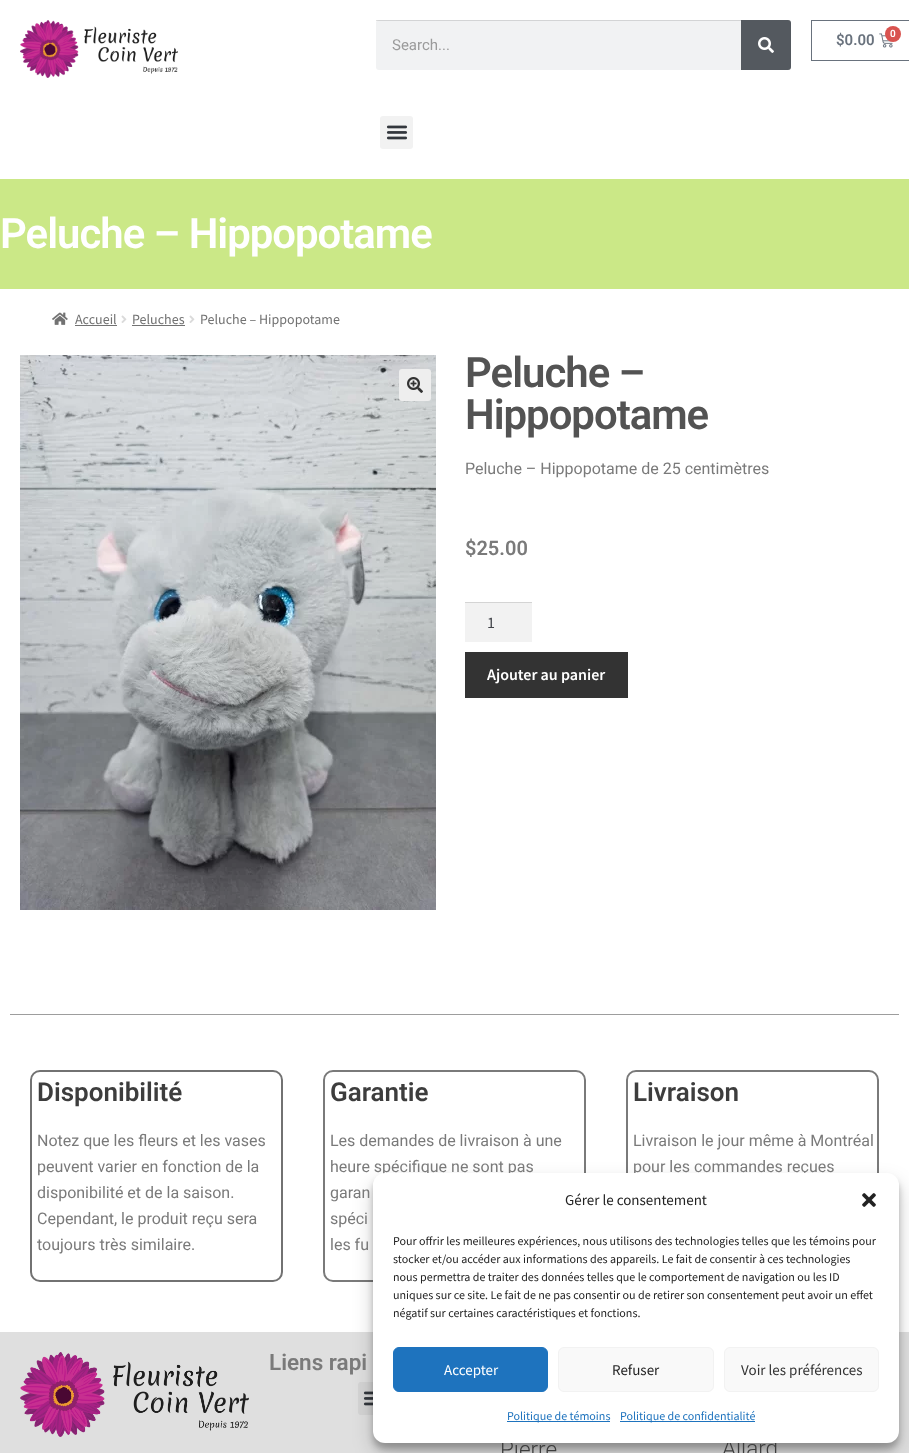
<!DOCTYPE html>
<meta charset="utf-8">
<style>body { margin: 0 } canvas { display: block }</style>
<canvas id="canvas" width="909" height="1453"></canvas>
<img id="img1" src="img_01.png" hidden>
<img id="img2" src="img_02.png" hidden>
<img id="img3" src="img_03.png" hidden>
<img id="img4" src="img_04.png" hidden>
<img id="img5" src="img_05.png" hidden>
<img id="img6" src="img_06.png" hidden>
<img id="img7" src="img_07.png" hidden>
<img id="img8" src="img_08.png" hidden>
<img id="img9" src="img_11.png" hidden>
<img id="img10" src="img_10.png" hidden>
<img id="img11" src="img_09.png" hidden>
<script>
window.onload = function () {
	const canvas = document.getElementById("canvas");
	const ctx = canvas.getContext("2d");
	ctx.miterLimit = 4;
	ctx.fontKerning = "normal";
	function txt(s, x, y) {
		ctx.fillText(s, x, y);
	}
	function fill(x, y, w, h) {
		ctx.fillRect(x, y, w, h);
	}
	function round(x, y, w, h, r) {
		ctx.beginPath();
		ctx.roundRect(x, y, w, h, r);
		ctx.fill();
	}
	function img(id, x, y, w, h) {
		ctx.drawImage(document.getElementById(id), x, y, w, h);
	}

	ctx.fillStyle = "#FFFFFF";
	fill(0, 0, 909, 1453);
	img("img1", 20, 20, 158, 58);
	ctx.fillStyle = "#F1F2F3";
	round(376, 20, 415, 50, 3);
	ctx.fillStyle = "rgba(0, 0, 0, 0.12)";
	fill(376, 20, 365, 1);
	ctx.fillStyle = "#54595F";
	ctx.beginPath();
	ctx.roundRect(741, 20, 50, 50, [0, 3, 3, 0]);
	ctx.fill();
	img("img2", 758, 37, 16, 16);
	ctx.strokeStyle = "#69727D";
	ctx.strokeRect(811.5, 20.5, 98, 40);
	img("img3", 879, 33, 14, 15);
	ctx.fillStyle = "#D9534F";
	ctx.beginPath();
	ctx.arc(893, 34, 8, 0, Math.PI * 2);
	ctx.fill();
	ctx.fillStyle = "#F2F2F2";
	round(380, 116, 33, 33, 3);
	img("img4", 386, 125, 22, 15);
	ctx.fillStyle = "#CBE887";
	fill(0, 179, 909, 110);
	img("img5", 52, 312, 16, 13);
	ctx.fillStyle = "#727272";
	fill(75, 325, 42, 1);
	img("img6", 121, 315, 6, 8);
	fill(132, 325, 53, 1);
	img("img6", 189, 315, 6, 8);
	img("img7", 20, 355, 416, 555);
	ctx.fillStyle = "#EEEEEE";
	round(399, 369, 32, 32, 3);
	img("img8", 407, 377, 16, 16);
	ctx.fillStyle = "#F2F2F2";
	fill(465, 603, 67, 39);
	ctx.fillStyle = "#D4D4D4";
	fill(465, 602, 67, 1);
	ctx.fillStyle = "#333333";
	fill(465, 652, 163, 46);
	ctx.fillStyle = "#9D9D9D";
	fill(10, 1014, 889, 1);
	ctx.beginPath();
	ctx.roundRect(31, 1071, 251, 210, 9);
	ctx.strokeStyle = "#727272";
	ctx.lineWidth = 2;
	ctx.stroke();
	ctx.beginPath();
	ctx.roundRect(324, 1071, 261, 210, 9);
	ctx.strokeStyle = "#7A7A7A";
	ctx.stroke();
	ctx.beginPath();
	ctx.roundRect(627, 1071, 251, 210, 9);
	ctx.stroke();
	ctx.fillStyle = "#DFDFDF";
	fill(0, 1332, 909, 121);
	ctx.fillStyle = "#D4D4D4";
	round(358, 1382, 33, 33, 3);
	img("img9", 363, 1391, 10, 15);
	ctx.fillStyle = "rgba(0, 0, 0, 0.23)";
	ctx.filter = "blur(3px)";
	ctx.beginPath();
	ctx.roundRect(373, 1179, 526, 270, 12);
	ctx.fill();
	ctx.filter = "none";
	ctx.fillStyle = "rgba(0, 0, 0, 0.19)";
	ctx.filter = "blur(10px)";
	ctx.beginPath();
	ctx.roundRect(373, 1183, 526, 270, 12);
	ctx.fill();
	ctx.filter = "none";
	img("img10", 20, 1352, 229, 85);
	ctx.font = "15px Roboto";
	ctx.fillStyle = "#9B9B9B";
	txt("Search...", 392, 50);
	ctx.font = "600 15px Roboto";
	ctx.fillStyle = "#69727D";
	txt("$0.00", 836, 45);
	ctx.font = "600 10px Roboto";
	ctx.fillStyle = "#FFFFFF";
	txt("0", 890, 37);
	ctx.letterSpacing = "-1px";
	ctx.font = "600 41.9px Roboto";
	txt("Peluche – Hippopotame", 0, 248);
	ctx.letterSpacing = "0px";
	ctx.font = "14px Source Sans Pro";
	ctx.fillStyle = "#727272";
	txt("Accueil", 75, 324);
	txt("Peluches", 132, 324);
	txt("Peluche – Hippopotame", 200, 324);
	ctx.letterSpacing = "-1px";
	ctx.font = "600 41.9px Roboto";
	ctx.fillStyle = "#535353";
	txt("Peluche –", 465, 387);
	txt("Hippopotame", 465, 429);
	ctx.letterSpacing = "0px";
	ctx.font = "16px Roboto";
	ctx.fillStyle = "#7A7A7A";
	txt("Peluche – Hippopotame de 25 centimètres", 465, 474);
	ctx.font = "600 20px Roboto";
	txt("$25.00", 465, 555);
	ctx.font = "16px Source Sans Pro";
	ctx.fillStyle = "#43454B";
	txt("1", 487, 628);
	ctx.font = "600 16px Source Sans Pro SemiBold";
	ctx.fillStyle = "#FFFFFF";
	txt("Ajouter au panier", 487, 680);
	ctx.font = "600 26px Roboto";
	ctx.fillStyle = "#3D3D3D";
	txt("Disponibilité", 37, 1101);
	ctx.font = "16px Roboto";
	ctx.fillStyle = "#7A7A7A";
	txt("Notez que les fleurs et les vases", 37, 1146);
	txt("peuvent varier en fonction de la", 37, 1172);
	txt("disponibilité et de la saison.", 37, 1198);
	txt("Cependant, le produit reçu sera", 37, 1224);
	txt("toujours très similaire.", 37, 1250);
	ctx.font = "600 26px Roboto";
	ctx.fillStyle = "#3D3D3D";
	txt("Garantie", 330, 1101);
	ctx.font = "16px Roboto";
	ctx.fillStyle = "#7A7A7A";
	txt("Les demandes de livraison à une", 330, 1146);
	txt("heure spécifique ne sont pas", 330, 1172);
	txt("garan", 330, 1198);
	txt("spéci", 330, 1224);
	txt("les fu", 330, 1250);
	ctx.font = "600 26px Roboto";
	ctx.fillStyle = "#3D3D3D";
	txt("Livraison", 633, 1101);
	ctx.font = "16px Roboto";
	ctx.fillStyle = "#7A7A7A";
	txt("Livraison le jour même à Montréal", 633, 1146);
	txt("pour les commandes reçues", 633, 1172);
	ctx.font = "600 22.5px Roboto";
	txt("Liens rapi", 269, 1370);
	ctx.font = "300 22.5px Roboto";
	ctx.fillStyle = "#3D3D3D";
	txt("Pierre", 500, 1457);
	txt("Allard", 722, 1456);
	ctx.fillStyle = "#FFFFFF";
	round(373, 1173, 526, 270, 12);
	ctx.font = "12px Source Sans Pro";
	ctx.fillStyle = "#222222";
	txt("négatif sur certaines caractéristiques et fonctions.", 393, 1317);
	txt("uniques sur ce site. Le fait de ne pas consentir ou de retirer son consentement peut avoir un effet", 393, 1299);
	txt("nous permettra de traiter des données telles que le comportement de navigation ou les ID", 393, 1281);
	txt("stocker et/ou accéder aux informations des appareils. Le fait de consentir à ces technologies", 393, 1263);
	txt("Pour offrir les meilleures expériences, nous utilisons des technologies telles que les témoins pour", 393, 1245);
	img("img11", 862, 1193, 14, 14);
	ctx.fillStyle = "#1E73BE";
	fill(620, 1421, 135, 1);
	txt("Politique de confidentialité", 620, 1420);
	fill(507, 1421, 103, 1);
	txt("Politique de témoins", 507, 1420);
	ctx.fillStyle = "#F9F9F9";
	ctx.beginPath();
	ctx.roundRect(724.5, 1347.5, 154, 44, 5.5);
	ctx.fill();
	ctx.strokeStyle = "#F2F2F2";
	ctx.lineWidth = 1;
	ctx.stroke();
	ctx.font = "15px Source Sans Pro";
	ctx.fillStyle = "#333333";
	txt("Voir les préférences", 741, 1375);
	ctx.fillStyle = "#F9F9F9";
	ctx.beginPath();
	ctx.roundRect(558.5, 1347.5, 155, 44, 5.5);
	ctx.fill();
	ctx.stroke();
	ctx.fillStyle = "#222222";
	txt("Refuser", 612, 1375);
	ctx.fillStyle = "#1E73BE";
	ctx.beginPath();
	ctx.roundRect(393.5, 1347.5, 154, 44, 5.5);
	ctx.fill();
	ctx.strokeStyle = "#1E73BE";
	ctx.stroke();
	ctx.fillStyle = "#FFFFFF";
	txt("Accepter", 444, 1375);
	ctx.fillStyle = "#222222";
	txt("Gérer le consentement", 565, 1205);
};
</script>
